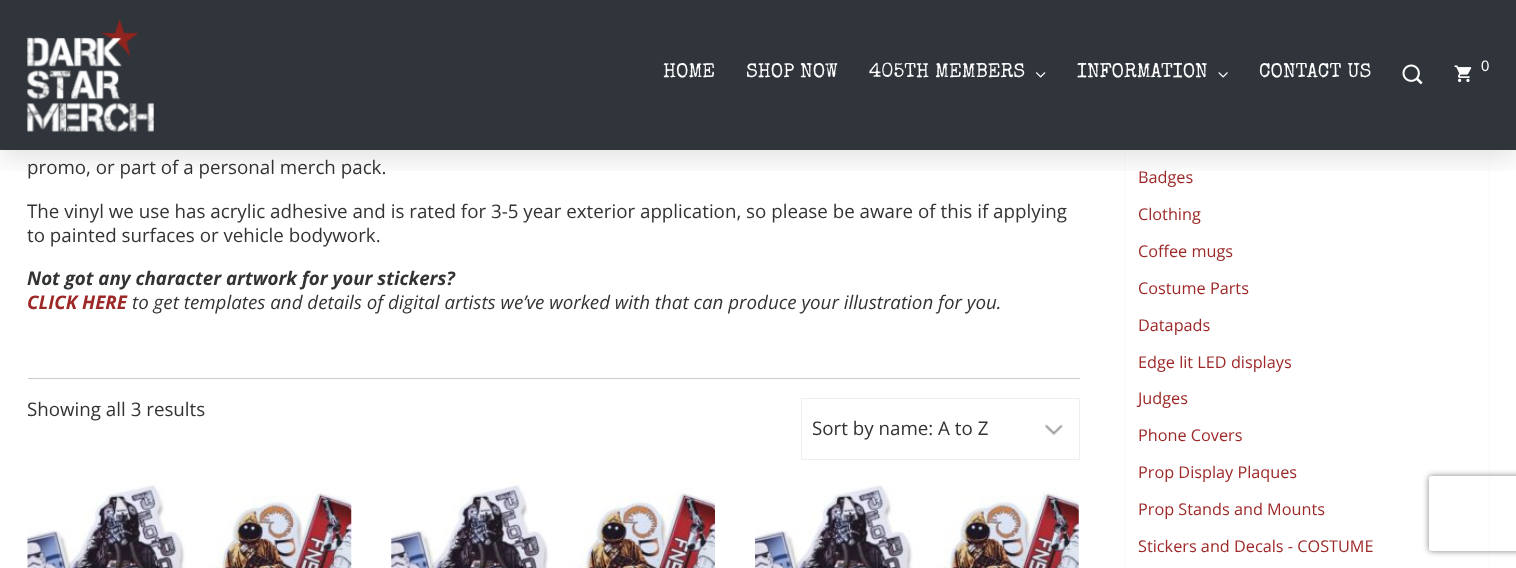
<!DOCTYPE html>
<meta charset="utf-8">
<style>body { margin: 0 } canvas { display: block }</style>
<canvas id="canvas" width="1516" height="568"></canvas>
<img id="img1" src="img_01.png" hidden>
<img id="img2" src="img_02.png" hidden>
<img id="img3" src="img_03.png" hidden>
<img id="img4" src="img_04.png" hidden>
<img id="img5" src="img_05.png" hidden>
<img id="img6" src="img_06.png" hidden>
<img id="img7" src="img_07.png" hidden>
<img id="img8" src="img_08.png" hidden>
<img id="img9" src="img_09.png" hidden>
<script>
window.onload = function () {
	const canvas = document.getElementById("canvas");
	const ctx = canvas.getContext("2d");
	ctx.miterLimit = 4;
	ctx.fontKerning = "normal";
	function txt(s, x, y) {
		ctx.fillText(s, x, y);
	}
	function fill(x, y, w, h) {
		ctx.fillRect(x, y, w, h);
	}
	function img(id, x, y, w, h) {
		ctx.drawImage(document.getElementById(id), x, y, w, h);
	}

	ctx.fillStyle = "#FFFFFF";
	fill(0, 0, 1516, 568);
	ctx.strokeStyle = "#F9F9F9";
	ctx.strokeRect(1124.5, 71.5, 365, 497);
	ctx.fillStyle = "#EBEBEB";
	fill(1138, 140, 338, 1);
	ctx.save();
	ctx.beginPath();
	ctx.rect(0, 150, 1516, 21);
	ctx.clip();
	ctx.fillStyle = "rgba(0, 0, 0, 0.1)";
	ctx.filter = "blur(12.5px)";
	ctx.beginPath();
	ctx.rect(0, 10, 1516, 150);
	ctx.fill();
	ctx.filter = "none";
	ctx.restore();
	ctx.fillStyle = "rgba(30, 36, 42, 0.92)";
	fill(0, 0, 1516, 150);
	img("img1", 27, 18, 127, 114);
	img("img2", 1036, 72, 10, 6);
	img("img3", 1218, 72, 10, 6);
	img("img4", 1402, 64, 21, 21);
	img("img5", 1454, 65, 18, 18);
	ctx.fillStyle = "#CCCCCC";
	fill(28, 378, 1052, 1);
	img("img6", 1045, 424, 18, 11);
	ctx.strokeStyle = "#EEEEEE";
	ctx.strokeRect(801.5, 398.5, 278, 61);
	img("img7", 27, 478, 325, 90);
	img("img8", 391, 478, 324, 90);
	img("img9", 755, 478, 324, 90);
	ctx.save();
	ctx.beginPath();
	ctx.moveTo(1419, 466);
	ctx.lineTo(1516, 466);
	ctx.lineTo(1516, 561);
	ctx.lineTo(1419, 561);
	ctx.closePath();
	ctx.moveTo(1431.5, 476);
	ctx.lineTo(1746.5, 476);
	ctx.bezierCurveTo(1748, 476, 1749, 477, 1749, 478.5);
	ctx.lineTo(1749, 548.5);
	ctx.bezierCurveTo(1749, 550, 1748, 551, 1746.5, 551);
	ctx.lineTo(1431.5, 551);
	ctx.bezierCurveTo(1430, 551, 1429, 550, 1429, 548.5);
	ctx.lineTo(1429, 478.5);
	ctx.bezierCurveTo(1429, 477, 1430, 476, 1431.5, 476);
	ctx.closePath();
	ctx.clip("evenodd");
	ctx.fillStyle = "#808080";
	ctx.filter = "blur(3px)";
	ctx.beginPath();
	ctx.roundRect(1429, 476, 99, 75, 2.5);
	ctx.fill();
	ctx.filter = "none";
	ctx.restore();
	ctx.font = "20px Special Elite";
	ctx.fillStyle = "#FFFFFF";
	txt("HOME", 663, 77);
	txt("SHOP NOW", 746, 77);
	txt("405TH MEMBERS", 869, 77);
	txt("INFORMATION", 1077, 77);
	txt("CONTACT US", 1259, 77);
	ctx.font = "15px Liberation Sans";
	txt("0", 1481, 71);
	ctx.font = "18.75px Open Sans";
	ctx.fillStyle = "#333333";
	txt("promo, or part of a personal merch pack.", 27, 174);
	txt("The vinyl we use has acrylic adhesive and is rated for 3-5 year exterior application, so please be aware of this if applying", 27, 218);
	txt("to painted surfaces or vehicle bodywork.", 27, 242);
	ctx.font = "italic bold 18.75px Open Sans";
	txt("Not got any character artwork for your stickers?", 27, 285);
	ctx.fillStyle = "#9D2828";
	txt("CLICK HERE", 27, 309);
	ctx.font = "italic 18.75px Open Sans";
	ctx.fillStyle = "#333333";
	txt("to get templates and details of digital artists we’ve worked with that can produce your illustration for you.", 132, 309);
	ctx.font = "18.75px Open Sans";
	txt("Showing all 3 results", 27, 416);
	txt("Sort by name: A to Z", 812, 435);
	ctx.font = "16.25px Open Sans";
	ctx.fillStyle = "#9D2828";
	txt("Badges", 1138, 183);
	txt("Clothing", 1138, 220);
	txt("Coffee mugs", 1138, 257);
	txt("Costume Parts", 1138, 294);
	txt("Datapads", 1138, 331);
	txt("Edge lit LED displays", 1138, 368);
	txt("Judges", 1138, 404);
	txt("Phone Covers", 1138, 441);
	txt("Prop Display Plaques", 1138, 478);
	txt("Prop Stands and Mounts", 1138, 515);
	txt("Stickers and Decals - COSTUME", 1138, 552);
};
</script>
